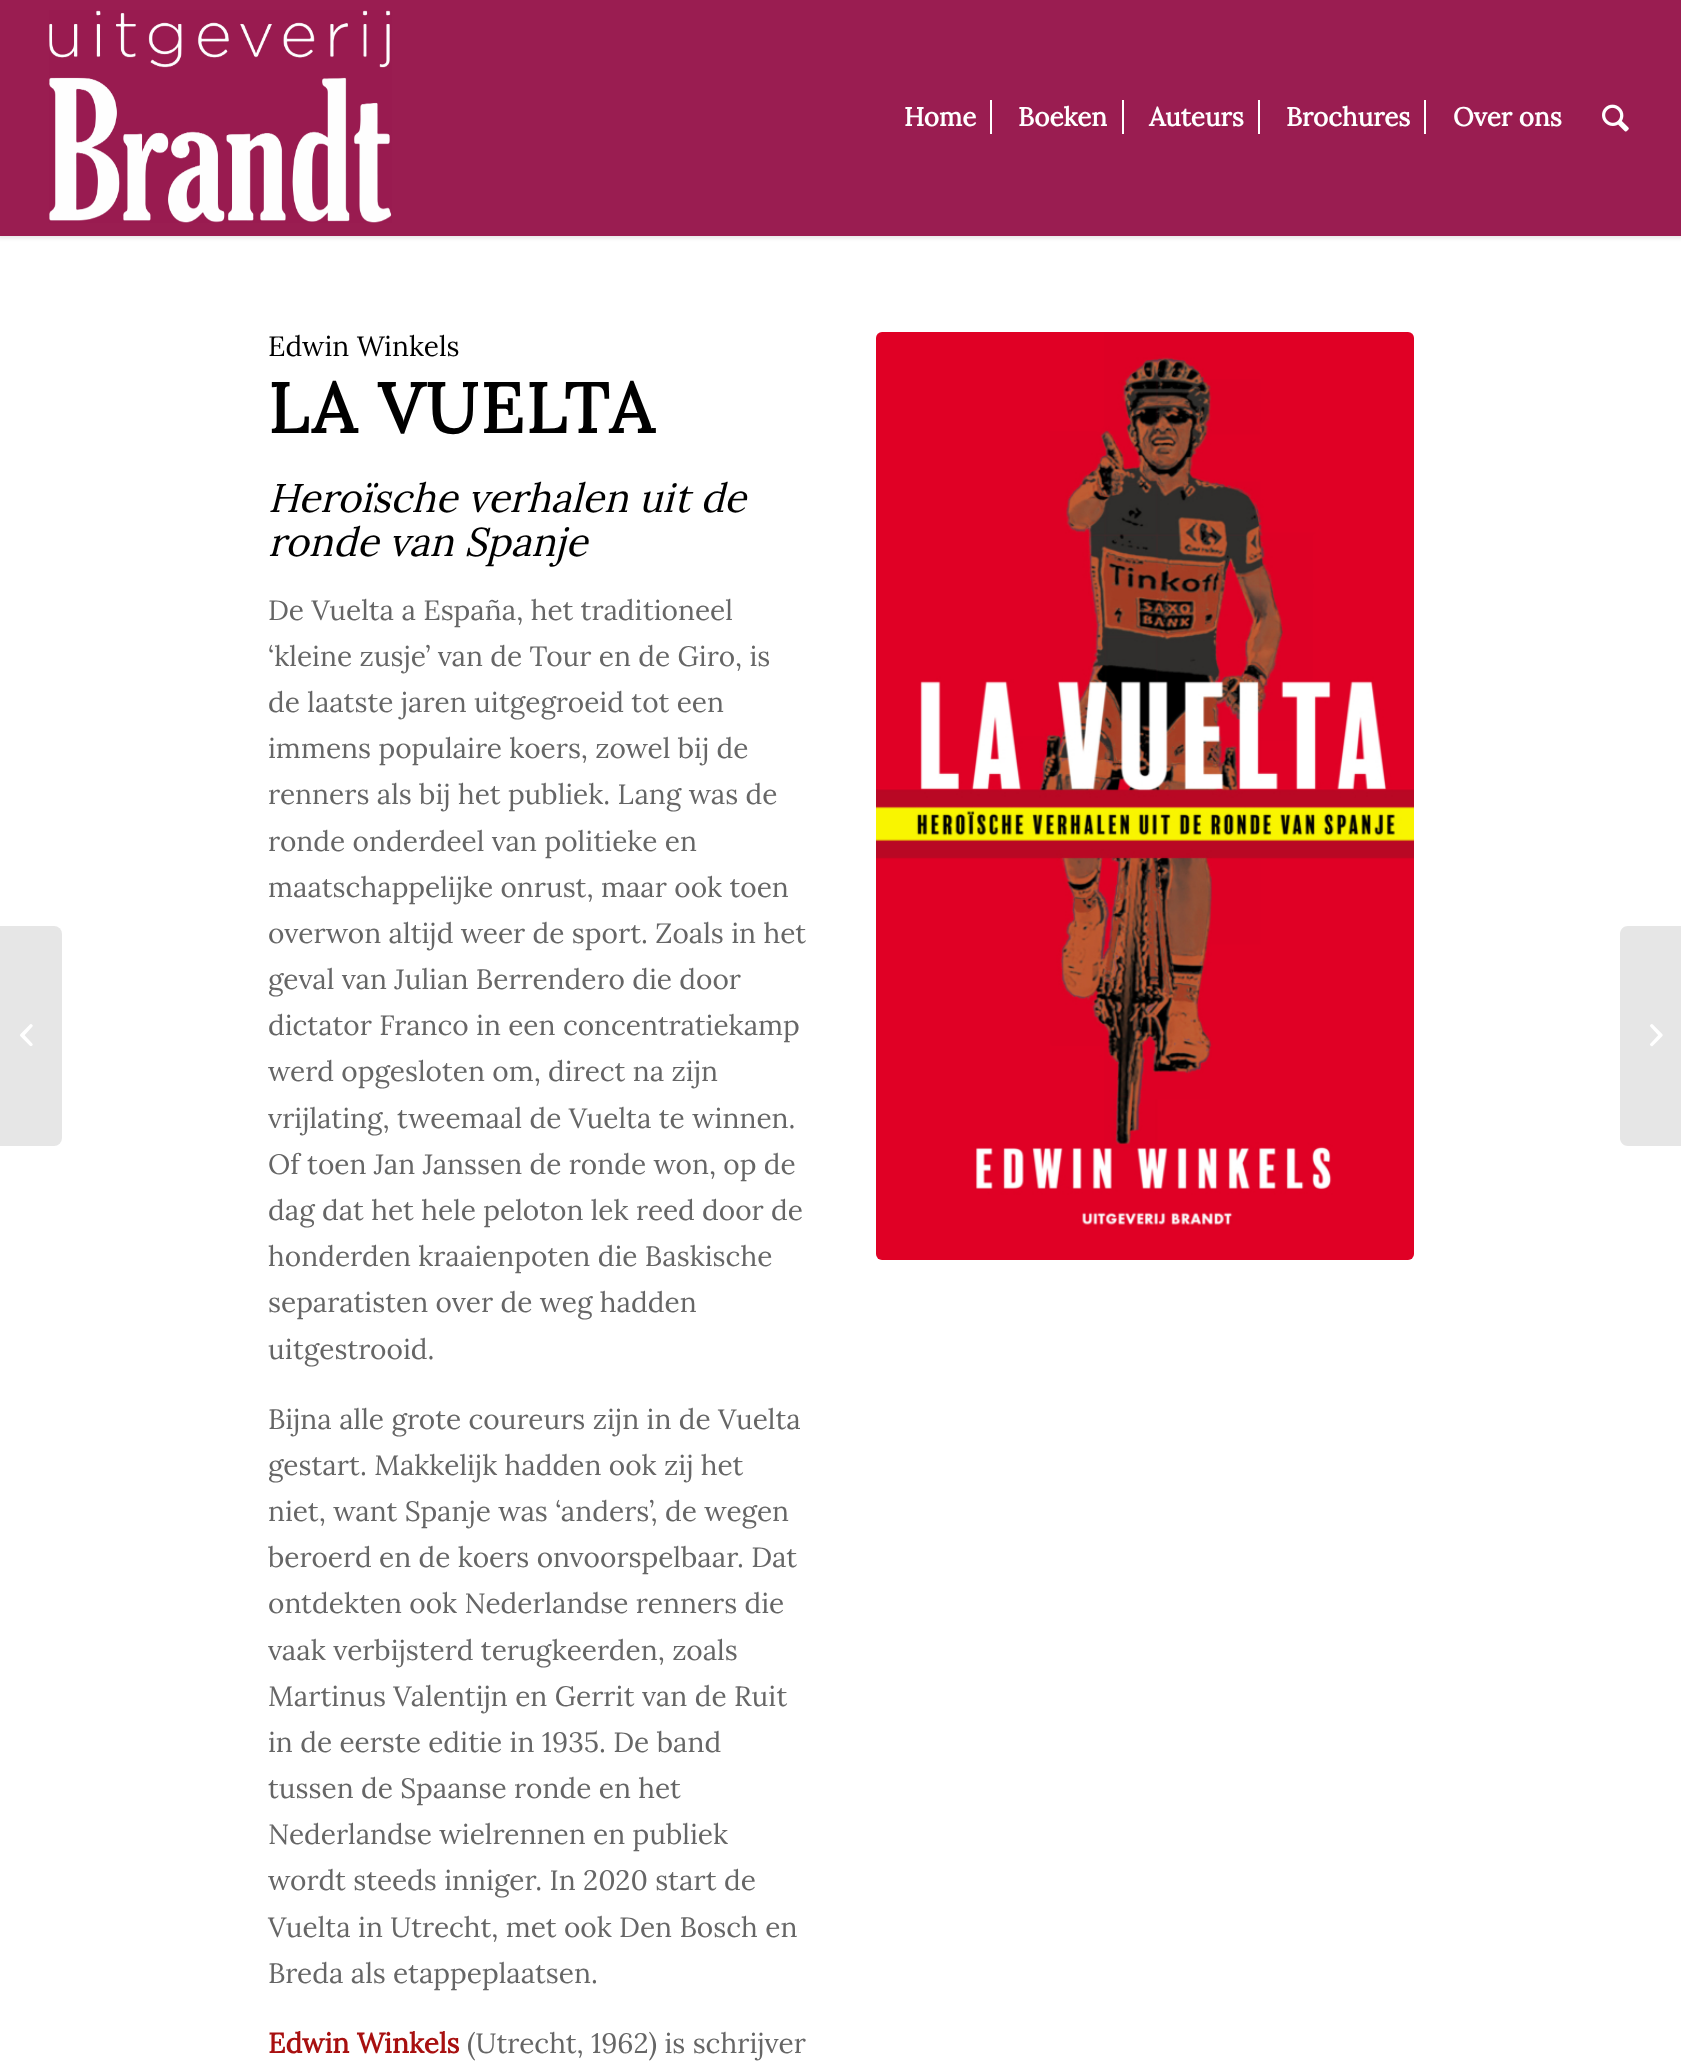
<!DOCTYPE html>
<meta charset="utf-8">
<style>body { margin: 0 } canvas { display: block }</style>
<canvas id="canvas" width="1681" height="2071"></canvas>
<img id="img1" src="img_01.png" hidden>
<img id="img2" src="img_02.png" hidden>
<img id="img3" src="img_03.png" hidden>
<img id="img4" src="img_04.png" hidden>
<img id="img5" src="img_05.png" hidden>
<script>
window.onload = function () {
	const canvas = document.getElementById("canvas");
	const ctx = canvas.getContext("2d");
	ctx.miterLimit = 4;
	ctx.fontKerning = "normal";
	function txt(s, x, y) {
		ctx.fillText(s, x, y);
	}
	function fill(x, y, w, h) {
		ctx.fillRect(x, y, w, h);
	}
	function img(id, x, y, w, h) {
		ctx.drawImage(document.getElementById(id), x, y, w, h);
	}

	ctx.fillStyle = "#FFFFFF";
	fill(0, 0, 1681, 2071);
	ctx.fillStyle = "rgba(0, 0, 0, 0.1)";
	ctx.filter = "blur(2px)";
	ctx.beginPath();
	ctx.rect(-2, -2, 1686, 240);
	ctx.fill();
	ctx.filter = "none";
	ctx.fillStyle = "#9A1D51";
	fill(0, 0, 1681, 236);
	img("img1", 49, 10, 343, 213);
	ctx.fillStyle = "#FFFFFF";
	fill(990, 100, 2, 34);
	fill(1122, 100, 2, 34);
	fill(1258, 100, 2, 34);
	fill(1424, 100, 2, 34);
	img("img2", 1602, 104, 27, 28);
	ctx.fillStyle = "#E6E6E6";
	ctx.beginPath();
	ctx.roundRect(0, 926, 62, 220, [0, 8, 8, 0]);
	ctx.fill();
	img("img3", 20, 1024, 13, 22);
	img("img4", 876, 332, 538, 928);
	ctx.beginPath();
	ctx.moveTo(1628, 926);
	ctx.lineTo(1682, 926);
	ctx.lineTo(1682, 1146);
	ctx.lineTo(1628, 1146);
	ctx.bezierCurveTo(1623.5, 1146, 1620, 1142.5, 1620, 1138);
	ctx.lineTo(1620, 934);
	ctx.bezierCurveTo(1620, 929.5, 1623.5, 926, 1628, 926);
	ctx.closePath();
	ctx.fill();
	img("img5", 1650, 1024, 13, 23);
	ctx.font = "bold 26px Lora";
	ctx.fillStyle = "#FFFFFF";
	txt("Home", 904, 126);
	txt("Boeken", 1018, 126);
	txt("Auteurs", 1149, 126);
	txt("Brochures", 1286, 126);
	txt("Over ons", 1453, 126);
	ctx.font = "28px Lora";
	ctx.fillStyle = "#000000";
	txt("Edwin Winkels", 268, 356);
	ctx.letterSpacing = "2px";
	ctx.font = "bold 70px Lora";
	txt("LA VUELTA", 268, 433);
	ctx.letterSpacing = "0px";
	ctx.font = "italic 40px Lora";
	txt("Heroïsche verhalen uit de", 268, 512);
	txt("ronde van Spanje", 268, 556);
	ctx.font = "28px Lora";
	ctx.fillStyle = "#666666";
	txt("De Vuelta a España, het traditioneel", 268, 620);
	txt("‘kleine zusje’ van de Tour en de Giro, is", 268, 666);
	txt("de laatste jaren uitgegroeid tot een", 268, 712);
	txt("immens populaire koers, zowel bij de", 268, 758);
	txt("renners als bij het publiek. Lang was de", 268, 804);
	txt("ronde onderdeel van politieke en", 268, 851);
	txt("maatschappelijke onrust, maar ook toen", 268, 897);
	txt("overwon altijd weer de sport. Zoals in het", 268, 943);
	txt("geval van Julian Berrendero die door", 268, 989);
	txt("dictator Franco in een concentratiekamp", 268, 1035);
	txt("werd opgesloten om, direct na zijn", 268, 1081);
	txt("vrijlating, tweemaal de Vuelta te winnen.", 268, 1128);
	txt("Of toen Jan Janssen de ronde won, op de", 268, 1174);
	txt("dag dat het hele peloton lek reed door de", 268, 1220);
	txt("honderden kraaienpoten die Baskische", 268, 1266);
	txt("separatisten over de weg hadden", 268, 1312);
	txt("uitgestrooid.", 268, 1359);
	txt("Bijna alle grote coureurs zijn in de Vuelta", 268, 1429);
	txt("gestart. Makkelijk hadden ook zij het", 268, 1475);
	txt("niet, want Spanje was ‘anders’, de wegen", 268, 1521);
	txt("beroerd en de koers onvoorspelbaar. Dat", 268, 1567);
	txt("ontdekten ook Nederlandse renners die", 268, 1613);
	txt("vaak verbijsterd terugkeerden, zoals", 268, 1660);
	txt("Martinus Valentijn en Gerrit van de Ruit", 268, 1706);
	txt("in de eerste editie in 1935. De band", 268, 1752);
	txt("tussen de Spaanse ronde en het", 268, 1798);
	txt("Nederlandse wielrennen en publiek", 268, 1844);
	txt("wordt steeds inniger. In 2020 start de", 268, 1890);
	txt("Vuelta in Utrecht, met ook Den Bosch en", 268, 1937);
	txt("Breda als etappeplaatsen.", 268, 1983);
	ctx.font = "bold 28px Lora";
	ctx.fillStyle = "#A81010";
	txt("Edwin Winkels", 268, 2053);
	ctx.font = "28px Lora";
	ctx.fillStyle = "#666666";
	txt("(Utrecht, 1962) is schrijver", 467, 2053);
};
</script>
